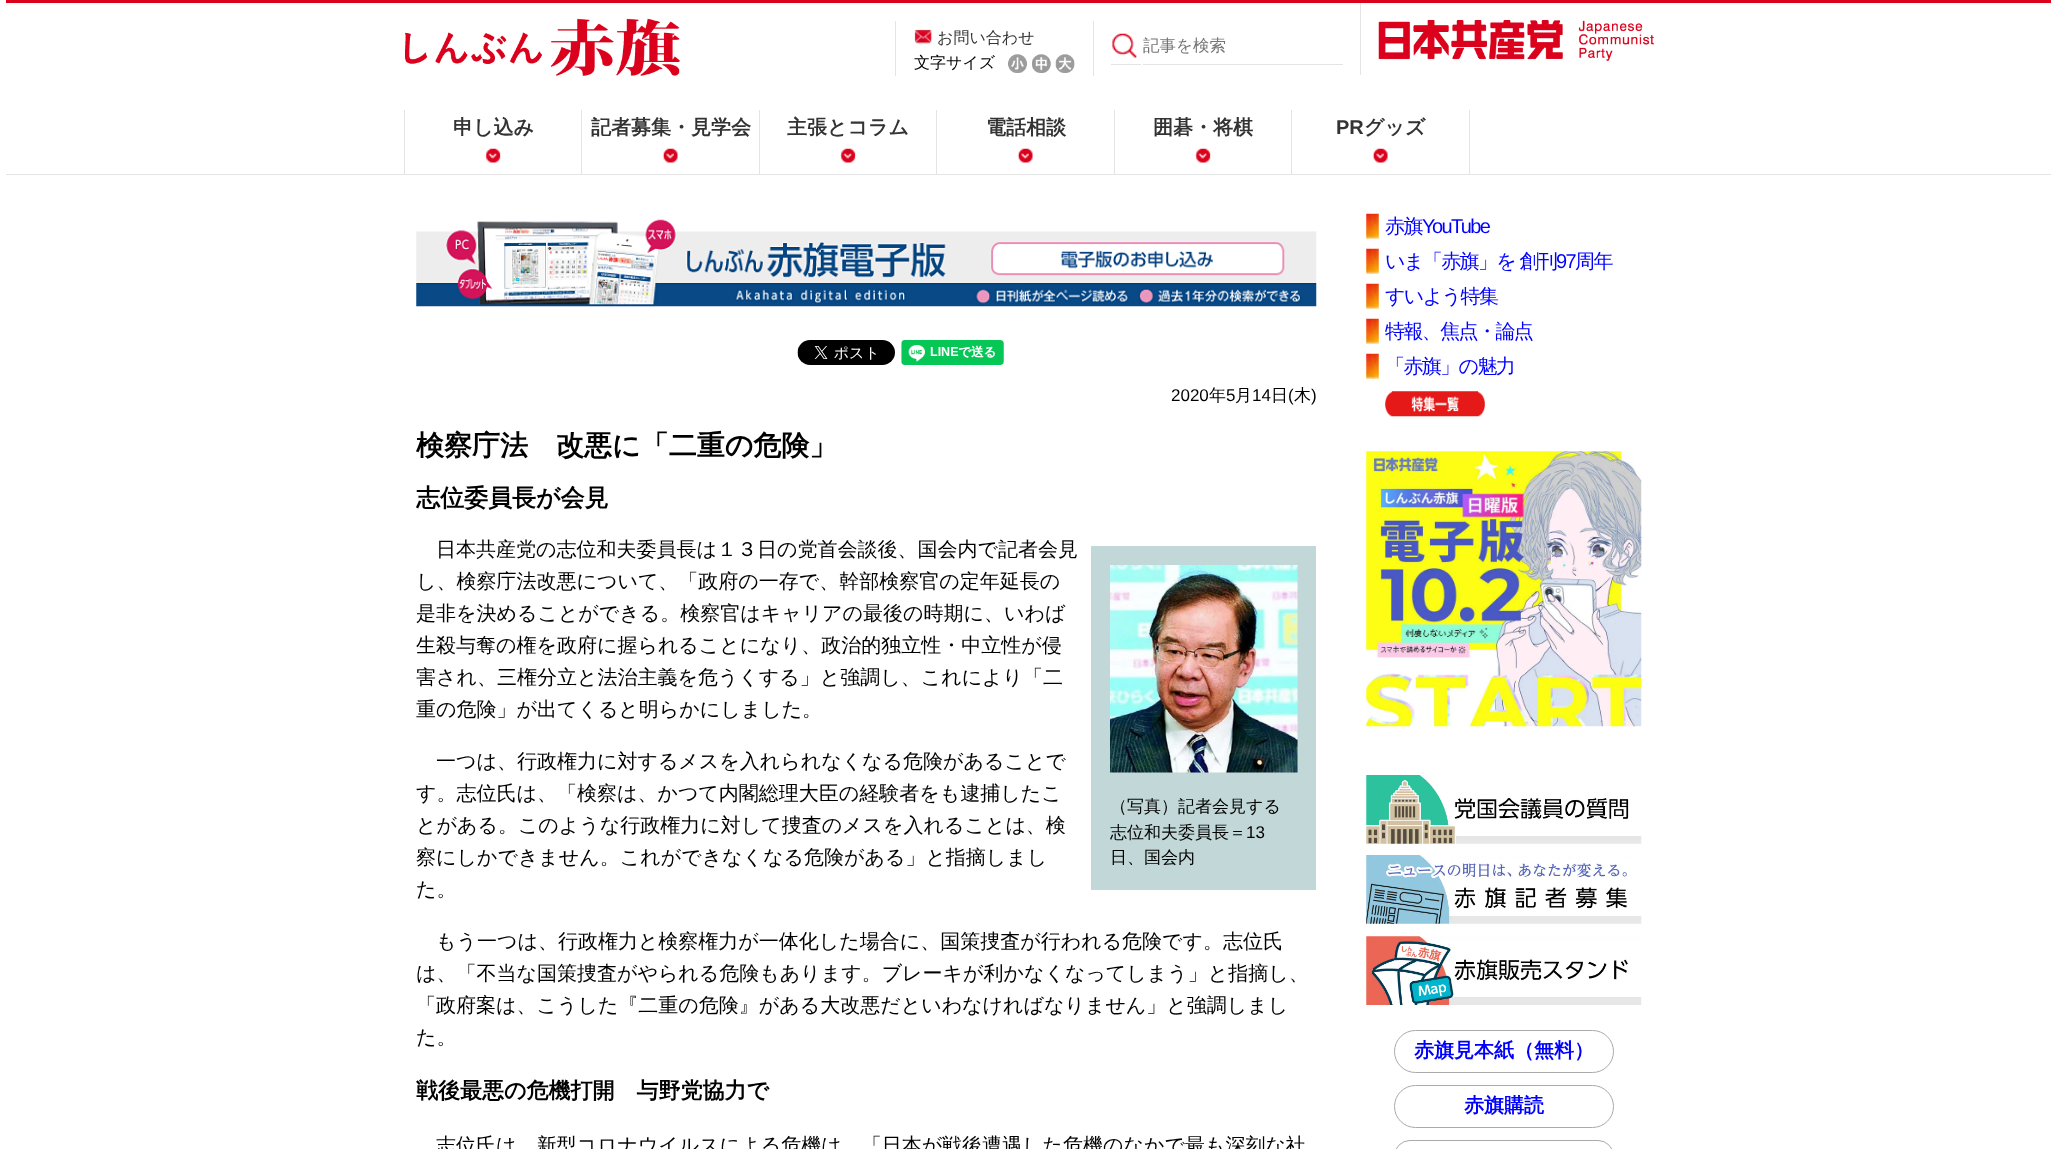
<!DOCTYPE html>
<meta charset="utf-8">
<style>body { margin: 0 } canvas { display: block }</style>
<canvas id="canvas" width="2057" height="1149"></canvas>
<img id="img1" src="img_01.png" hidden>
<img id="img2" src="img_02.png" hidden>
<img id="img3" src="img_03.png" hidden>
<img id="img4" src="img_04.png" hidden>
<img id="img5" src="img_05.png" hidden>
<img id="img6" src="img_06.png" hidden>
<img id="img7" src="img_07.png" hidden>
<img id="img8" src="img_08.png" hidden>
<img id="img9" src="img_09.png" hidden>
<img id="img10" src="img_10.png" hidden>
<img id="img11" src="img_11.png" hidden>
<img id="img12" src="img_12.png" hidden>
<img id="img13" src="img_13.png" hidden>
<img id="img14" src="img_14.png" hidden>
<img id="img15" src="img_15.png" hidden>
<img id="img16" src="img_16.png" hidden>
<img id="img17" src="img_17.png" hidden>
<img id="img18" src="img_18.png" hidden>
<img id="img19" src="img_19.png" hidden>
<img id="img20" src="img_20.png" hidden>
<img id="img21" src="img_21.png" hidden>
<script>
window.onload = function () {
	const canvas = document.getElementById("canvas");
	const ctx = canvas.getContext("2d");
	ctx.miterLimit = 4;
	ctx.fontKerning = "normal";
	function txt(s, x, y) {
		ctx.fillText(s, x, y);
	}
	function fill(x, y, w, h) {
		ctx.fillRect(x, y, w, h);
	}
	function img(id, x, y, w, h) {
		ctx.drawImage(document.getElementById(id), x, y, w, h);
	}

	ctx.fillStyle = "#FFFFFF";
	fill(0, 0, 2057, 1149);
	ctx.fillStyle = "#DB001C";
	fill(6, 0, 2045, 3);
	ctx.fillStyle = "#E4E4E4";
	fill(6, 174, 2045, 1);
	img("img1", 405, 18, 275, 58);
	fill(895, 21, 1, 55);
	img("img2", 914, 29, 18, 15);
	img("img3", 1008, 54, 19, 19);
	img("img4", 1032, 54, 19, 19);
	img("img5", 1055, 54, 20, 19);
	fill(1093, 21, 1, 55);
	img("img6", 1112, 33, 25, 25);
	fill(1111, 64, 30, 1);
	fill(1143, 64, 200, 1);
	fill(1360, 3, 1, 72);
	img("img7", 1378, 20, 276, 41);
	fill(404, 110, 1, 64);
	img("img8", 485, 148, 16, 15);
	fill(581, 110, 1, 64);
	img("img9", 662, 148, 16, 15);
	fill(759, 110, 1, 64);
	img("img8", 840, 148, 16, 15);
	fill(936, 110, 1, 64);
	img("img9", 1017, 148, 16, 15);
	fill(1114, 110, 1, 64);
	img("img10", 1195, 148, 16, 15);
	fill(1469, 110, 1, 64);
	fill(1291, 110, 1, 64);
	img("img9", 1372, 148, 16, 15);
	img("img11", 416, 219, 901, 88);
	img("img12", 797, 340, 98, 25);
	img("img13", 901, 340, 103, 25);
	ctx.fillStyle = "#C2D7D7";
	fill(1091, 546, 225, 344);
	img("img14", 1110, 565, 188, 208);
	img("img15", 1366, 213, 13, 26);
	img("img15", 1366, 248, 13, 26);
	img("img16", 1366, 283, 13, 26);
	img("img15", 1366, 318, 13, 26);
	img("img15", 1366, 353, 13, 26);
	img("img17", 1385, 391, 100, 26);
	img("img18", 1366, 451, 276, 276);
	img("img19", 1366, 775, 276, 69);
	img("img20", 1366, 855, 276, 69);
	img("img21", 1366, 936, 276, 69);
	ctx.beginPath();
	ctx.roundRect(1394.5, 1030.5, 219, 42, 21);
	ctx.strokeStyle = "#AAAAAA";
	ctx.stroke();
	ctx.beginPath();
	ctx.roundRect(1394.5, 1085.5, 219, 42, 21);
	ctx.stroke();
	ctx.beginPath();
	ctx.roundRect(1394.5, 1140.5, 219, 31, 21);
	ctx.stroke();
	ctx.font = "500 16px WenQuanYi Zen Hei";
	ctx.fillStyle = "#333333";
	txt("お問い合わせ", 937, 43);
	ctx.fillStyle = "#000000";
	txt("文字サイズ", 914, 68);
	ctx.font = "500 16.5px WenQuanYi Zen Hei";
	ctx.fillStyle = "#757575";
	txt("記事を検索", 1143, 51);
	ctx.font = "bold 20px WenQuanYi Zen Hei";
	ctx.fillStyle = "#333333";
	txt("申し込み", 453, 134);
	txt("記者募集・見学会", 591, 134);
	txt("主張とコラム", 787, 134);
	txt("電話相談", 986, 134);
	txt("囲碁・将棋", 1153, 134);
	ctx.font = "bold 20px Liberation Sans";
	txt("PR", 1336, 134);
	ctx.font = "bold 20px WenQuanYi Zen Hei";
	txt("グッズ", 1364, 134);
	ctx.font = "17px Liberation Sans";
	ctx.fillStyle = "#000000";
	txt("2020", 1171, 401);
	ctx.font = "500 17px WenQuanYi Zen Hei";
	txt("年", 1209, 401);
	ctx.font = "17px Liberation Sans";
	txt("5", 1226, 401);
	ctx.font = "500 17px WenQuanYi Zen Hei";
	txt("月", 1235, 401);
	ctx.font = "17px Liberation Sans";
	txt("14", 1252, 401);
	ctx.font = "500 17px WenQuanYi Zen Hei";
	txt("日", 1271, 401);
	ctx.font = "17px Liberation Sans";
	txt("(", 1288, 401);
	ctx.font = "500 17px WenQuanYi Zen Hei";
	txt("木", 1294, 401);
	ctx.font = "17px Liberation Sans";
	txt(")", 1311, 401);
	ctx.font = "bold 28px WenQuanYi Zen Hei";
	txt("検察庁法　改悪に「二重の危険」", 416, 455);
	ctx.font = "bold 24px WenQuanYi Zen Hei";
	txt("志位委員長が会見", 416, 506);
	ctx.font = "500 20px WenQuanYi Zen Hei";
	txt("日本共産党の志位和夫委員長は１３日の党首会談後、国会内で記者会見", 436, 556);
	txt("し、検察庁法改悪について、「政府の一存で、幹部検察官の定年延長の", 416, 588);
	txt("是非を決めることができる。検察官はキャリアの最後の時期に、いわば", 416, 620);
	txt("生殺与奪の権を政府に握られることになり、政治的独立性・中立性が侵", 416, 652);
	txt("害され、三権分立と法治主義を危うくする」と強調し、これにより「二", 416, 684);
	txt("重の危険」が出てくると明らかにしました。", 416, 716);
	txt("一つは、行政権力に対するメスを入れられなくなる危険があることで", 436, 768);
	txt("す。志位氏は、「検察は、かつて内閣総理大臣の経験者をも逮捕したこ", 416, 800);
	txt("とがある。このような行政権力に対して捜査のメスを入れることは、検", 416, 832);
	txt("察にしかできません。これができなくなる危険がある」と指摘しまし", 416, 864);
	txt("た。", 416, 896);
	ctx.font = "500 17px WenQuanYi Zen Hei";
	txt("（写真）記者会見する", 1110, 812);
	txt("志位和夫委員長＝", 1110, 838);
	ctx.font = "17px Liberation Sans";
	txt("13", 1246, 838);
	ctx.font = "500 17px WenQuanYi Zen Hei";
	txt("日、国会内", 1110, 863);
	ctx.font = "500 20px WenQuanYi Zen Hei";
	txt("もう一つは、行政権力と検察権力が一体化した場合に、国策捜査が行われる危険です。志位氏", 436, 948);
	txt("は、「不当な国策捜査がやられる危険もあります。ブレーキが利かなくなってしまう」と指摘し、", 416, 980);
	txt("「政府案は、こうした『二重の危険』がある大改悪だといわなければなりません」と強調しまし", 416, 1012);
	txt("た。", 416, 1044);
	ctx.font = "bold 22px WenQuanYi Zen Hei";
	txt("戦後最悪の危機打開　与野党協力で", 416, 1098);
	ctx.font = "500 20px WenQuanYi Zen Hei";
	txt("志位氏は、新型コロナウイルスによる危機は、「日本が戦後遭遇した危機のなかで最も深刻な社", 436, 1152);
	ctx.letterSpacing = "-1.6px";
	ctx.fillStyle = "#0000FF";
	txt("赤旗", 1385, 233);
	ctx.font = "20px Liberation Sans";
	txt("YouTube", 1422, 233);
	ctx.font = "500 20px WenQuanYi Zen Hei";
	txt("いま「赤旗」を 創刊", 1385, 268);
	ctx.font = "20px Liberation Sans";
	txt("97", 1556, 268);
	ctx.font = "500 20px WenQuanYi Zen Hei";
	txt("周年", 1575, 268);
	txt("すいよう特集", 1385, 303);
	txt("特報、焦点・論点", 1385, 338);
	txt("「赤旗」の魅力", 1385, 373);
	ctx.letterSpacing = "0px";
	ctx.font = "bold 20px WenQuanYi Zen Hei";
	txt("赤旗見本紙（無料）", 1414, 1057);
	txt("赤旗購読", 1464, 1112);
};
</script>
